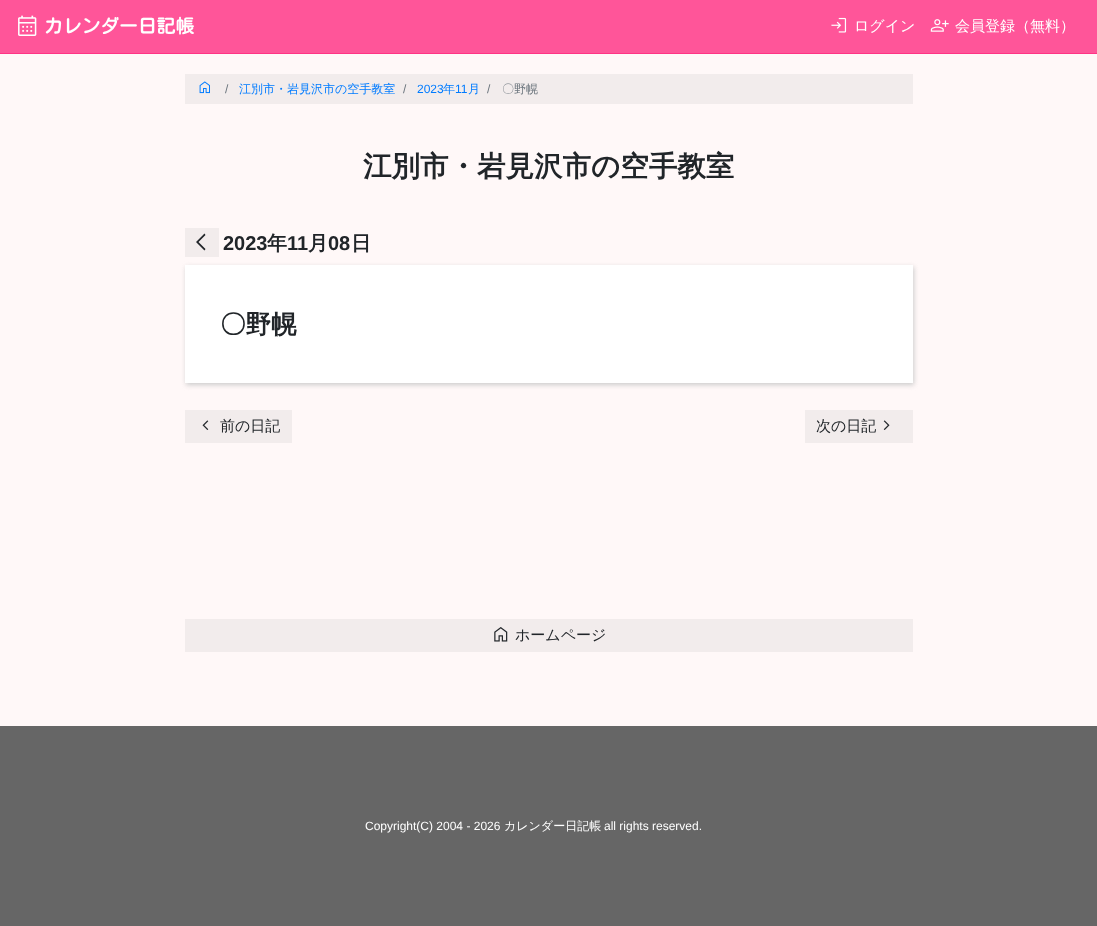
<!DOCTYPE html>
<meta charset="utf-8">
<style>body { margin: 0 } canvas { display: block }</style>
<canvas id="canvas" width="1097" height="926"></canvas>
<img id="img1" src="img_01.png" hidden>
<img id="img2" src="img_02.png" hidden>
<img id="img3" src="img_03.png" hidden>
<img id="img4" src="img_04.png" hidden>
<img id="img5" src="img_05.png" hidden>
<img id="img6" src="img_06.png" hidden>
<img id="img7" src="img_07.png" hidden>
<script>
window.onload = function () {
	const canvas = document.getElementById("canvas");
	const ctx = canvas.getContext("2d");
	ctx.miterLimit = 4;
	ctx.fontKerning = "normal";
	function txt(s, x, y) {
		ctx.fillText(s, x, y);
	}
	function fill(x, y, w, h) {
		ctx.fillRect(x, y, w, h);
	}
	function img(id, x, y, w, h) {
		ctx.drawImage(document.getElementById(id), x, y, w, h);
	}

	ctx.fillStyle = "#FFF8F8";
	fill(0, 0, 1097, 926);
	ctx.fillStyle = "#FF5599";
	fill(0, 0, 1097, 53);
	ctx.fillStyle = "#FF3485";
	fill(0, 53, 1097, 1);
	img("img1", 18, 15, 19, 21);
	img("img2", 831, 17, 16, 16);
	img("img3", 930, 19, 19, 13);
	ctx.fillStyle = "#F2ECEC";
	fill(185, 74, 728, 30);
	img("img4", 199, 81, 11, 13);
	fill(185, 228, 34, 29);
	ctx.fillStyle = "#212529";
	ctx.beginPath();
	ctx.moveTo(204.5, 250.5);
	ctx.lineTo(196, 242);
	ctx.lineTo(204.5, 233.5);
	ctx.lineTo(205.5, 235);
	ctx.lineTo(198.5, 242);
	ctx.lineTo(205.5, 249);
	ctx.closePath();
	ctx.fill();
	ctx.fillStyle = "#CCCCCC";
	ctx.filter = "blur(2.5px)";
	ctx.beginPath();
	ctx.rect(186, 267, 728, 118);
	ctx.fill();
	ctx.filter = "none";
	ctx.fillStyle = "#FFFFFF";
	fill(185, 265, 728, 118);
	ctx.fillStyle = "#F2ECEC";
	fill(185, 410, 107, 33);
	img("img5", 202, 420, 7, 10);
	fill(805, 410, 108, 33);
	img("img6", 883, 420, 7, 10);
	fill(185, 619, 728, 33);
	img("img7", 494, 627, 14, 15);
	ctx.fillStyle = "#666666";
	fill(0, 726, 1097, 200);
	ctx.font = "bold 18.75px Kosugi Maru";
	ctx.fillStyle = "#FFFFFF";
	txt("カレンダー日記帳", 44, 33);
	ctx.font = "500 15px WenQuanYi Zen Hei";
	txt("ログイン", 854, 31);
	txt("会員登録（無料）", 955, 31);
	ctx.font = "12px Liberation Sans";
	ctx.fillStyle = "#6C757D";
	txt("/", 225, 93);
	ctx.font = "500 12px WenQuanYi Zen Hei";
	ctx.fillStyle = "#007BFF";
	txt("江別市・岩見沢市の空手教室", 239, 93);
	ctx.font = "12px Liberation Sans";
	ctx.fillStyle = "#6C757D";
	txt("/", 403, 93);
	ctx.fillStyle = "#007BFF";
	txt("2023", 417, 93);
	ctx.font = "500 12px WenQuanYi Zen Hei";
	txt("年", 443, 93);
	ctx.font = "12px Liberation Sans";
	txt("11", 455, 93);
	ctx.font = "500 12px WenQuanYi Zen Hei";
	txt("月", 468, 93);
	ctx.font = "12px Liberation Sans";
	ctx.fillStyle = "#6C757D";
	txt("/", 487, 93);
	ctx.font = "500 12px WenQuanYi Zen Hei";
	txt("〇野幌", 502, 93);
	ctx.font = "bold 28.5px WenQuanYi Zen Hei";
	ctx.fillStyle = "#212529";
	txt("江別市・岩見沢市の空手教室", 363, 176);
	ctx.font = "bold 20px Liberation Sans";
	txt("2023", 223, 250);
	ctx.font = "bold 20px WenQuanYi Zen Hei";
	txt("年", 267, 250);
	ctx.font = "bold 20px Liberation Sans";
	txt("11", 287, 250);
	ctx.font = "bold 20px WenQuanYi Zen Hei";
	txt("月", 308, 250);
	ctx.font = "bold 20px Liberation Sans";
	txt("08", 328, 250);
	ctx.font = "bold 20px WenQuanYi Zen Hei";
	txt("日", 351, 250);
	ctx.font = "bold 25.5px WenQuanYi Zen Hei";
	txt("〇野幌", 220, 333);
	ctx.font = "500 15px WenQuanYi Zen Hei";
	txt("前の日記", 220, 431);
	txt("次の日記", 816, 431);
	txt("ホームページ", 515, 640);
	ctx.font = "12px Liberation Sans";
	ctx.fillStyle = "#FFFFFF";
	txt("Copyright(C) 2004 - 2026", 365, 830);
	ctx.font = "500 12px WenQuanYi Zen Hei";
	txt("カレンダー日記帳", 504, 830);
	ctx.font = "12px Liberation Sans";
	txt("all rights reserved.", 604, 830);
};
</script>
